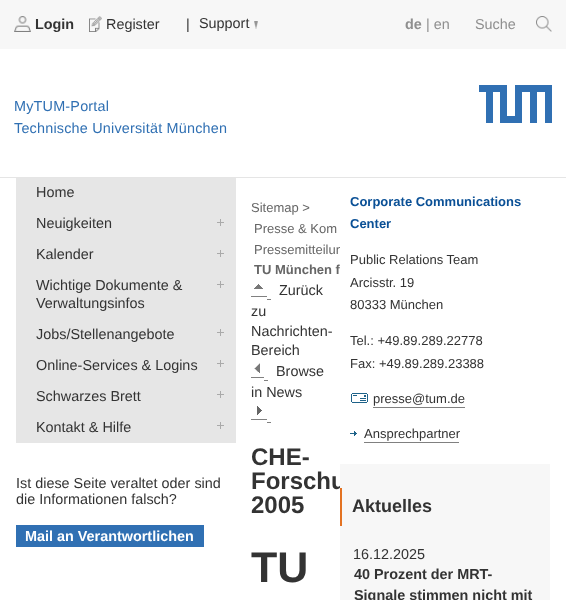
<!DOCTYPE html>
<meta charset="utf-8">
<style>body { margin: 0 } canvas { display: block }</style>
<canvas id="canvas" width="566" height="600"></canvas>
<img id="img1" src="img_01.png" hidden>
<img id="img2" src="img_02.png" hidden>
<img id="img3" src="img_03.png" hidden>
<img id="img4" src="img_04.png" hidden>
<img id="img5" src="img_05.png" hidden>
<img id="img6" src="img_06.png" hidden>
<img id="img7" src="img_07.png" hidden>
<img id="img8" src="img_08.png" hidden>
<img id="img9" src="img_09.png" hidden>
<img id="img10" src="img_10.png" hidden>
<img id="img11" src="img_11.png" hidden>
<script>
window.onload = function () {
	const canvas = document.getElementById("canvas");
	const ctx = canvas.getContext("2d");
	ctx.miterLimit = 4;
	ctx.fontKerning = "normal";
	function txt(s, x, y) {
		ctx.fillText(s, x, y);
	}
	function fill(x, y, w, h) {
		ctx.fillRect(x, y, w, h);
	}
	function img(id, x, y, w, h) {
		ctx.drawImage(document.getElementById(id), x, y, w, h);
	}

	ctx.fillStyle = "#F7F7F7";
	fill(0, 0, 566, 600);
	img("img1", 14, 16, 17, 16);
	img("img2", 89, 16, 13, 16);
	img("img3", 254, 21, 4, 8);
	img("img4", 536, 16, 16, 16);
	ctx.fillStyle = "#FFFFFF";
	fill(0, 49, 566, 128);
	ctx.fillStyle = "#E5E5E5";
	fill(0, 177, 566, 1);
	img("img5", 479, 85, 73, 38);
	ctx.fillStyle = "#FFFFFF";
	fill(340, 178, 226, 422);
	fill(0, 178, 340, 422);
	ctx.fillStyle = "#E6E6E6";
	fill(16, 178, 220, 265);
	img("img6", 217, 219, 7, 7);
	img("img6", 217, 250, 7, 7);
	img("img6", 217, 281, 7, 7);
	img("img6", 217, 329, 7, 7);
	img("img6", 217, 360, 7, 7);
	img("img6", 217, 391, 7, 7);
	img("img6", 217, 422, 7, 7);
	ctx.fillStyle = "#3070B3";
	fill(17, 526, 185, 19);
	fill(16, 525, 188, 1);
	fill(202, 525, 2, 22);
	fill(16, 545, 188, 2);
	fill(16, 525, 1, 22);
	img("img7", 254, 284, 9, 5);
	ctx.fillStyle = "#808080";
	fill(251, 296, 16, 1);
	fill(267, 299, 4, 1);
	img("img8", 254, 363, 6, 10);
	fill(251, 377, 13, 1);
	fill(264, 380, 4, 1);
	fill(251, 419, 16, 1);
	fill(267, 422, 4, 1);
	img("img9", 257, 406, 5, 9);
	img("img10", 351, 393, 17, 10);
	fill(373, 407, 92, 1);
	img("img11", 350, 431, 7, 5);
	fill(364, 442, 95, 1);
	ctx.fillStyle = "#F7F7F7";
	fill(340, 464, 210, 136);
	ctx.fillStyle = "#E37222";
	fill(340, 488, 2, 38);
	ctx.font = "bold 14.4px Liberation Sans";
	ctx.fillStyle = "#333333";
	txt("Login", 35, 29);
	ctx.font = "14.4px Liberation Sans";
	txt("Register", 106, 29);
	txt("|", 186, 29);
	txt("Support", 199, 28);
	ctx.font = "bold 14.4px Liberation Sans";
	ctx.fillStyle = "#8F8F8F";
	txt("de", 405, 29);
	ctx.font = "14.4px Liberation Sans";
	txt("| en", 426, 29);
	txt("Suche", 475, 29);
	ctx.letterSpacing = "0.2px";
	ctx.fillStyle = "#3070B3";
	txt("MyTUM-Portal", 14, 111);
	txt("Technische Universität München", 14, 133);
	ctx.letterSpacing = "0px";
	ctx.fillStyle = "#333333";
	txt("Home", 36, 197);
	txt("Neuigkeiten", 36, 228);
	txt("Kalender", 36, 259);
	txt("Wichtige Dokumente &", 36, 290);
	txt("Verwaltungsinfos", 36, 308);
	txt("Jobs/Stellenangebote", 36, 339);
	txt("Online-Services & Logins", 36, 370);
	txt("Schwarzes Brett", 36, 401);
	txt("Kontakt & Hilfe", 36, 432);
	txt("Ist diese Seite veraltet oder sind", 16, 488);
	txt("die Informationen falsch?", 16, 504);
	ctx.font = "bold 14.4px Liberation Sans";
	ctx.fillStyle = "#FFFFFF";
	txt("Mail an Verantwortlichen", 25, 541);
	ctx.font = "13px Liberation Sans";
	ctx.fillStyle = "#666666";
	txt("Sitemap >", 251, 212);
	txt("Presse & Kom", 254, 233);
	ctx.save();
	ctx.beginPath();
	ctx.rect(237, 178, 103, 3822);
	ctx.clip();
	txt("Pressemitteilun", 254, 254);
	ctx.restore();
	ctx.font = "bold 13px Liberation Sans";
	txt("TU München f", 254, 274);
	ctx.font = "14.4px Liberation Sans";
	ctx.fillStyle = "#333333";
	txt("Zurück", 279, 295);
	txt("zu", 251, 316);
	txt("Nachrichten-", 251, 336);
	txt("Bereich", 251, 355);
	txt("Browse", 276, 376);
	txt("in News", 251, 397);
	ctx.font = "bold 24px Liberation Sans";
	txt("CHE-", 251, 465);
	ctx.save();
	ctx.beginPath();
	ctx.rect(237, 178, 103, 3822);
	ctx.clip();
	txt("Forschu", 251, 489);
	ctx.restore();
	txt("2005", 251, 513);
	ctx.font = "bold 43px Liberation Sans";
	txt("TU", 251, 582);
	ctx.font = "bold 13px Liberation Sans";
	ctx.fillStyle = "#0A5096";
	txt("Corporate Communications", 350, 206);
	txt("Center", 350, 228);
	ctx.font = "13px Liberation Sans";
	ctx.fillStyle = "#333333";
	txt("Public Relations Team", 350, 264);
	txt("Arcisstr. 19", 350, 287);
	txt("80333 München", 350, 309);
	txt("Tel.: +49.89.289.22778", 350, 345);
	txt("Fax: +49.89.289.23388", 350, 368);
	txt("presse@tum.de", 373, 403);
	txt("Ansprechpartner", 364, 438);
	ctx.font = "bold 18px Liberation Sans";
	txt("Aktuelles", 352, 512);
	ctx.font = "14.4px Liberation Sans";
	txt("16.12.2025", 353, 559);
	ctx.font = "bold 14.4px Liberation Sans";
	txt("40 Prozent der MRT-", 354, 579);
	txt("Signale stimmen nicht mit", 354, 600);
};
</script>
